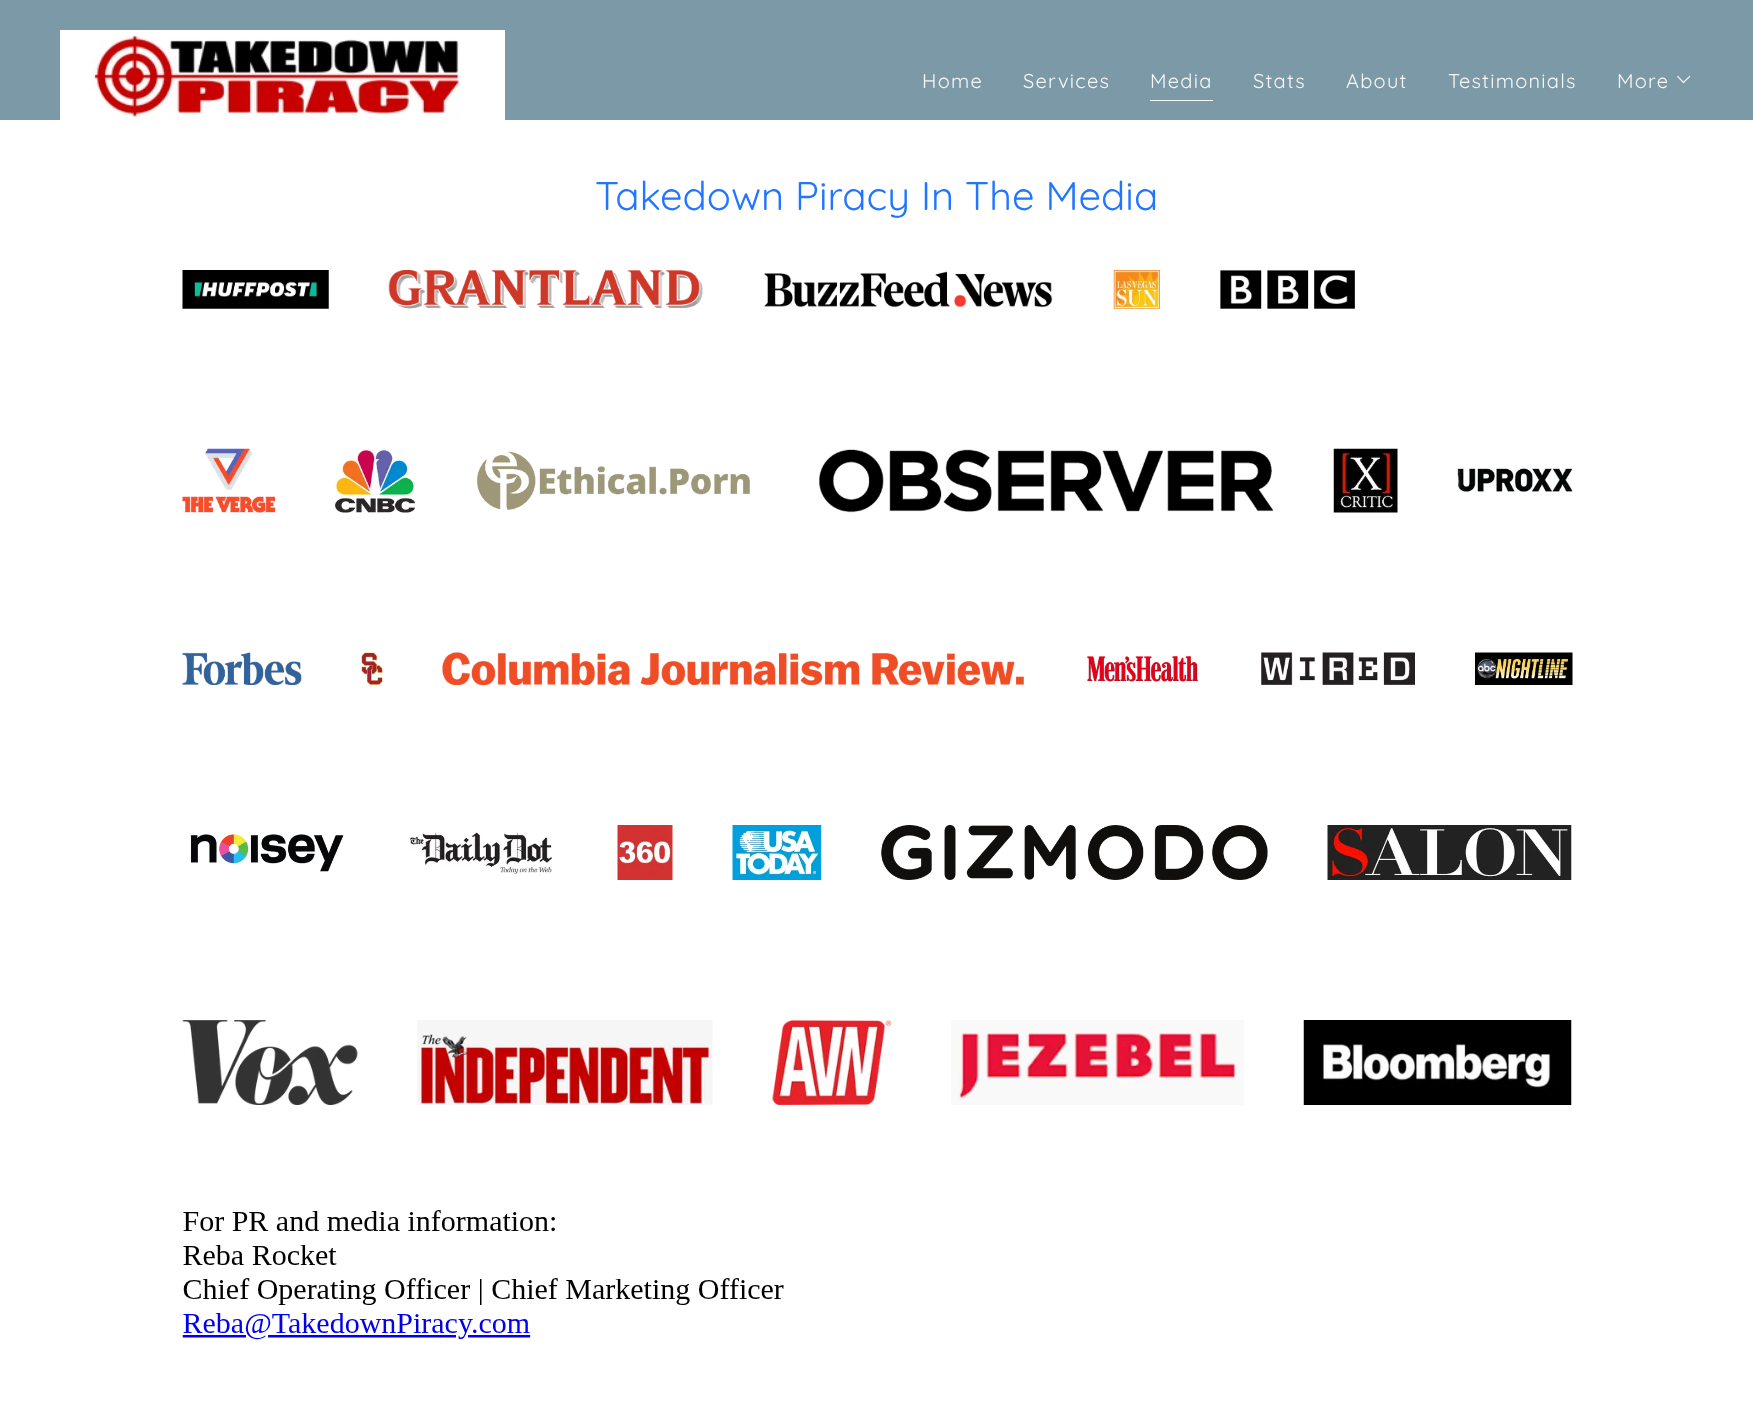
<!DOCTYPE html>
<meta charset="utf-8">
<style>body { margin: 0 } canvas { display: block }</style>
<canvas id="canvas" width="1753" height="1409"></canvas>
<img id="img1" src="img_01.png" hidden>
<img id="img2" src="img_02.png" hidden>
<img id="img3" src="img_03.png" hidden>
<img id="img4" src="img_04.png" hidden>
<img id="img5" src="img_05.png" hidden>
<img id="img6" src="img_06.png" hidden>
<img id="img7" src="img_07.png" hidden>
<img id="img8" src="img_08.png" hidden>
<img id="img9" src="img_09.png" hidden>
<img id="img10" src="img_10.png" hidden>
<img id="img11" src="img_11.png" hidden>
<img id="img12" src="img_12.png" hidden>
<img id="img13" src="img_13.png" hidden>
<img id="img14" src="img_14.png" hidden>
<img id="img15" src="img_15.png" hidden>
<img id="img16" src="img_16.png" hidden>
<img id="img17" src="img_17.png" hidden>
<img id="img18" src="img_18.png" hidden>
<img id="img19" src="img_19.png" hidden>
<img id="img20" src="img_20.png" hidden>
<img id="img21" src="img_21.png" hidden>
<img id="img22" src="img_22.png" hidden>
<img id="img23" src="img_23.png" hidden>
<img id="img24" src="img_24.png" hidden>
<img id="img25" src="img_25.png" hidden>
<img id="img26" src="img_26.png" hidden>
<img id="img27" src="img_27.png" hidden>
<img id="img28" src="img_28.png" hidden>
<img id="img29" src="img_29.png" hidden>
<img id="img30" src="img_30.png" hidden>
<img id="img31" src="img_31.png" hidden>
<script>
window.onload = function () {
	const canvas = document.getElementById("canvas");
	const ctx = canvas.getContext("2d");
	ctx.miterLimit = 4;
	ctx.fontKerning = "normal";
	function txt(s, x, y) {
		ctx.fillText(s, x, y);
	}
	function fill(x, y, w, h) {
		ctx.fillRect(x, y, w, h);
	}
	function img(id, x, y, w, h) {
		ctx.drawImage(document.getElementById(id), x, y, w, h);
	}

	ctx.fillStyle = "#FFFFFF";
	fill(0, 0, 1753, 1409);
	ctx.fillStyle = "#7C99A7";
	fill(0, 0, 1753, 120);
	img("img1", 60, 30, 445, 90);
	ctx.fillStyle = "#F7F7F7";
	fill(1150, 100, 63, 1);
	img("img2", 1677, 75, 14, 9);
	img("img3", 182, 270, 147, 39);
	img("img4", 388, 270, 315, 39);
	img("img5", 764, 271, 289, 37);
	img("img6", 1113, 270, 47, 39);
	img("img7", 1220, 270, 135, 39);
	img("img8", 182, 448, 93, 65);
	img("img9", 335, 449, 80, 64);
	img("img10", 477, 451, 273, 59);
	img("img11", 819, 449, 455, 64);
	img("img12", 1333, 448, 65, 65);
	img("img13", 1457, 467, 116, 25);
	img("img14", 182, 652, 120, 33);
	img("img15", 361, 652, 22, 33);
	img("img16", 442, 652, 582, 33);
	img("img17", 1087, 655, 111, 27);
	img("img18", 1261, 652, 154, 33);
	img("img19", 1475, 652, 98, 33);
	img("img20", 190, 834, 154, 38);
	img("img21", 409, 832, 143, 44);
	img("img22", 617, 825, 56, 55);
	img("img23", 732, 825, 90, 55);
	img("img24", 881, 825, 387, 55);
	img("img25", 1327, 825, 245, 55);
	img("img26", 182, 1020, 176, 85);
	img("img27", 417, 1020, 296, 85);
	img("img28", 772, 1020, 120, 85);
	img("img29", 951, 1020, 293, 85);
	img("img30", 1303, 1020, 269, 85);
	img("img31", 182, 1210, 602, 130);
	ctx.letterSpacing = "1.25px";
	ctx.font = "20px Quicksand";
	txt("Home", 922, 88);
	txt("Services", 1023, 88);
	txt("Media", 1150, 88);
	txt("Stats", 1253, 88);
	txt("About", 1346, 88);
	txt("Testimonials", 1448, 88);
	txt("More", 1617, 88);
	ctx.letterSpacing = "0px";
	ctx.font = "40px Quicksand";
	ctx.fillStyle = "#2175FF";
	txt("Takedown Piracy In The Media", 595, 210);
};
</script>
